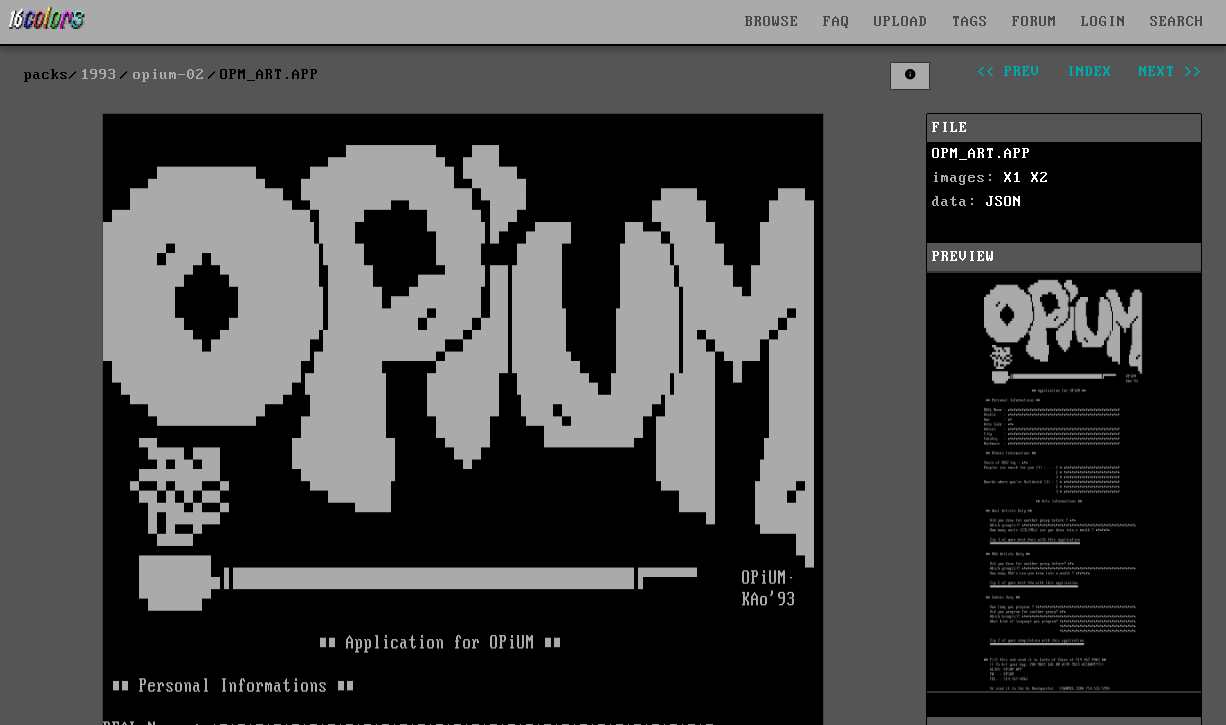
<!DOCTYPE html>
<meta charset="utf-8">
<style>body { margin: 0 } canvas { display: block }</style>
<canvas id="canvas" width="1226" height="725"></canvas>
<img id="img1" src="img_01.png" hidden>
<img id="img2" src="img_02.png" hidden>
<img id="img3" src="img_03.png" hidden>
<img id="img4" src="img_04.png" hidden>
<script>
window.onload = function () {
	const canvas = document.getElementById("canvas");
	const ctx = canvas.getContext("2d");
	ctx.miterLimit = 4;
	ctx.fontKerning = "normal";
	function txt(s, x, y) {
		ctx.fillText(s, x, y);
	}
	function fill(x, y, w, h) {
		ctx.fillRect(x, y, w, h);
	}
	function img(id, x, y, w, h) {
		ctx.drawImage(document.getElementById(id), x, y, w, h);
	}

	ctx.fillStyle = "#555555";
	fill(0, 0, 1226, 725);
	ctx.fillStyle = "rgba(34, 34, 34, 0.35)";
	ctx.filter = "blur(2.5px)";
	ctx.beginPath();
	ctx.rect(0, 5, 1226, 46);
	ctx.fill();
	ctx.filter = "none";
	ctx.fillStyle = "#AAAAAA";
	fill(0, 0, 1226, 44);
	ctx.fillStyle = "#000000";
	fill(0, 44, 1226, 2);
	img("img1", 9, 7, 76, 22);
	ctx.fillStyle = "#AAAAAA";
	ctx.beginPath();
	ctx.roundRect(890.5, 62.5, 39, 27, 0.5);
	ctx.fill();
	ctx.strokeStyle = "#333333";
	ctx.stroke();
	img("img2", 905, 69, 11, 11);
	ctx.strokeStyle = "#444444";
	ctx.strokeRect(102.5, 113.5, 721, 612);
	img("img3", 103, 114, 720, 611);
	ctx.fillStyle = "#000000";
	ctx.beginPath();
	ctx.roundRect(926.5, 113.5, 275, 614, 1.5);
	ctx.fill();
	ctx.strokeStyle = "#000000";
	ctx.stroke();
	ctx.fillStyle = "#555555";
	fill(927, 114, 274, 28);
	fill(927, 243, 274, 28);
	ctx.fillStyle = "#333333";
	fill(927, 271, 274, 2);
	fill(927, 691, 274, 2);
	img("img4", 984, 279, 159, 412);
	ctx.fillStyle = "#555555";
	fill(927, 717, 274, 8);
	ctx.font = "16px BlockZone";
	ctx.fillStyle = "#4A4A4A";
	txt("BROWSE", 745, 26);
	txt("FAQ", 823, 26);
	txt("UPLOAD", 874, 26);
	txt("TAGS", 952, 26);
	txt("FORUM", 1012, 26);
	txt("LOGIN", 1081, 26);
	txt("SEARCH", 1150, 26);
	ctx.fillStyle = "#000000";
	txt("packs/", 24, 79);
	ctx.fillStyle = "#AAAAAA";
	txt("1993", 81, 79);
	ctx.fillStyle = "#000000";
	txt("/", 120, 79);
	ctx.fillStyle = "#AAAAAA";
	txt("opium-02", 133, 79);
	ctx.fillStyle = "#000000";
	txt("/", 208, 79);
	txt("OPM_ART.APP", 220, 79);
	ctx.fillStyle = "#00AAAA";
	txt("<< PREV", 977, 76);
	txt("INDEX", 1067, 76);
	txt("NEXT >>", 1139, 76);
	ctx.fillStyle = "#FFFFFF";
	txt("FILE", 932, 132);
	txt("OPM_ART.APP", 932, 158);
	ctx.fillStyle = "#AAAAAA";
	txt("images:", 932, 182);
	ctx.fillStyle = "#FFFFFF";
	txt("X1 X2", 1004, 182);
	ctx.fillStyle = "#AAAAAA";
	txt("data:", 932, 206);
	ctx.fillStyle = "#FFFFFF";
	txt("JSON", 986, 206);
	txt("PREVIEW", 932, 261);
};
</script>
